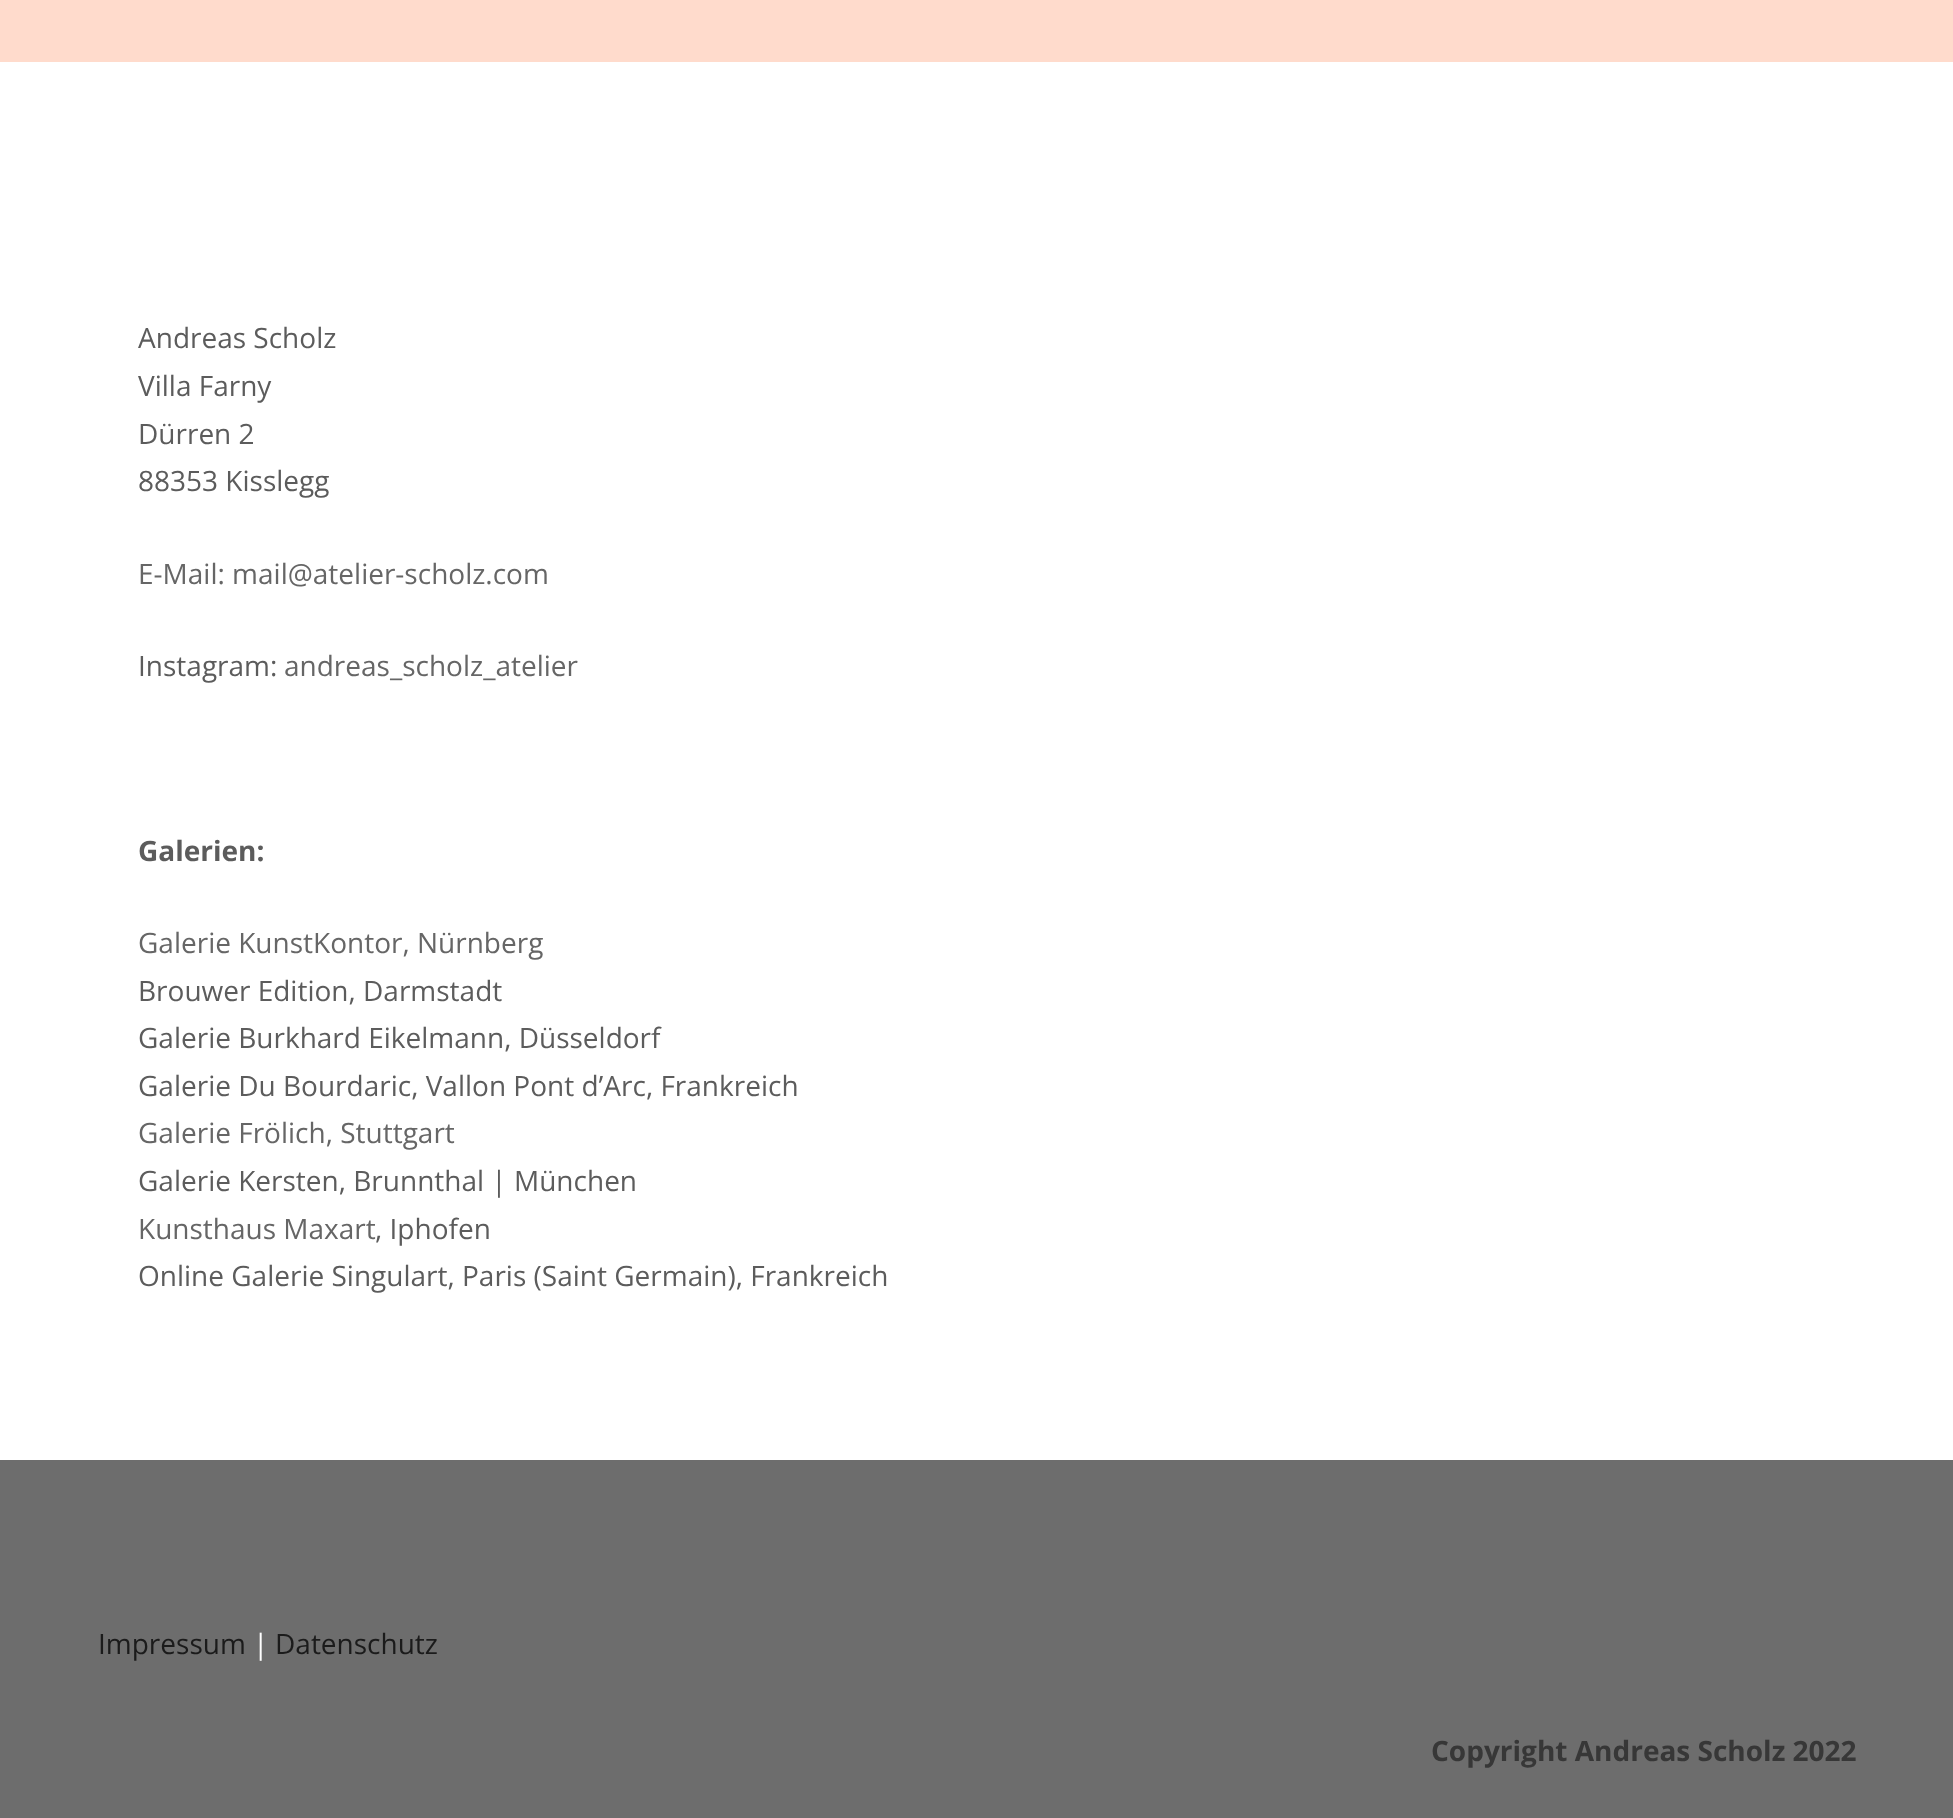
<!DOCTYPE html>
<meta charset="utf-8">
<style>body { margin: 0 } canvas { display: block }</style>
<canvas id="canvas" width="1953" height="1818"></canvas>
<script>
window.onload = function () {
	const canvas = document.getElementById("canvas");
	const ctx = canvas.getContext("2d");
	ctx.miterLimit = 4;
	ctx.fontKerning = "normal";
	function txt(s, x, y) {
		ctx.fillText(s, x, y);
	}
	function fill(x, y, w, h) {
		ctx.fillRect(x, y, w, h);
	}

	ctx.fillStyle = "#FFFFFF";
	fill(0, 0, 1953, 1818);
	ctx.fillStyle = "#FFDBCC";
	fill(0, 0, 1953, 62);
	ctx.fillStyle = "#6D6D6D";
	fill(0, 1460, 1953, 358);
	ctx.font = "28px Open Sans";
	ctx.fillStyle = "#5C5C5C";
	txt("Andreas Scholz", 138, 348);
	txt("Villa Farny", 138, 396);
	txt("Dürren 2", 138, 444);
	txt("88353 Kisslegg", 138, 491);
	ctx.fillStyle = "#666666";
	txt("E-Mail: mail@atelier-scholz.com", 138, 584);
	ctx.fillStyle = "#5C5C5C";
	txt("Instagram:", 138, 676);
	ctx.fillStyle = "#666666";
	txt("andreas_scholz_atelier", 284, 676);
	ctx.font = "bold 28px Open Sans";
	ctx.fillStyle = "#5C5C5C";
	txt("Galerien:", 138, 861);
	ctx.font = "28px Open Sans";
	ctx.fillStyle = "#666666";
	txt("Galerie KunstKontor, Nürnberg", 138, 953);
	ctx.fillStyle = "#5C5C5C";
	txt("Brouwer Edition, Darmstadt", 138, 1001);
	txt("Galerie Burkhard Eikelmann, Düsseldorf", 138, 1048);
	txt("Galerie Du Bourdaric, Vallon Pont d’Arc, Frankreich", 138, 1096);
	ctx.fillStyle = "#666666";
	txt("Galerie Frölich, Stuttgart", 138, 1143);
	ctx.fillStyle = "#5C5C5C";
	txt("Galerie Kersten, Brunnthal | München", 138, 1191);
	ctx.fillStyle = "#666666";
	txt("Kunsthaus Maxart", 138, 1239);
	ctx.fillStyle = "#5C5C5C";
	txt(", Iphofen", 375, 1239);
	txt("Online Galerie Singulart, Paris (Saint Germain), Frankreich", 138, 1286);
	ctx.fillStyle = "#1B1B1B";
	txt("Impressum", 98, 1654);
	ctx.fillStyle = "#FFFFFF";
	txt("|", 253, 1654);
	ctx.fillStyle = "#1B1B1B";
	txt("Datenschutz", 275, 1654);
	ctx.font = "bold 28px Open Sans";
	ctx.fillStyle = "#373737";
	txt("Copyright Andreas Scholz 2022", 1431, 1761);
};
</script>
